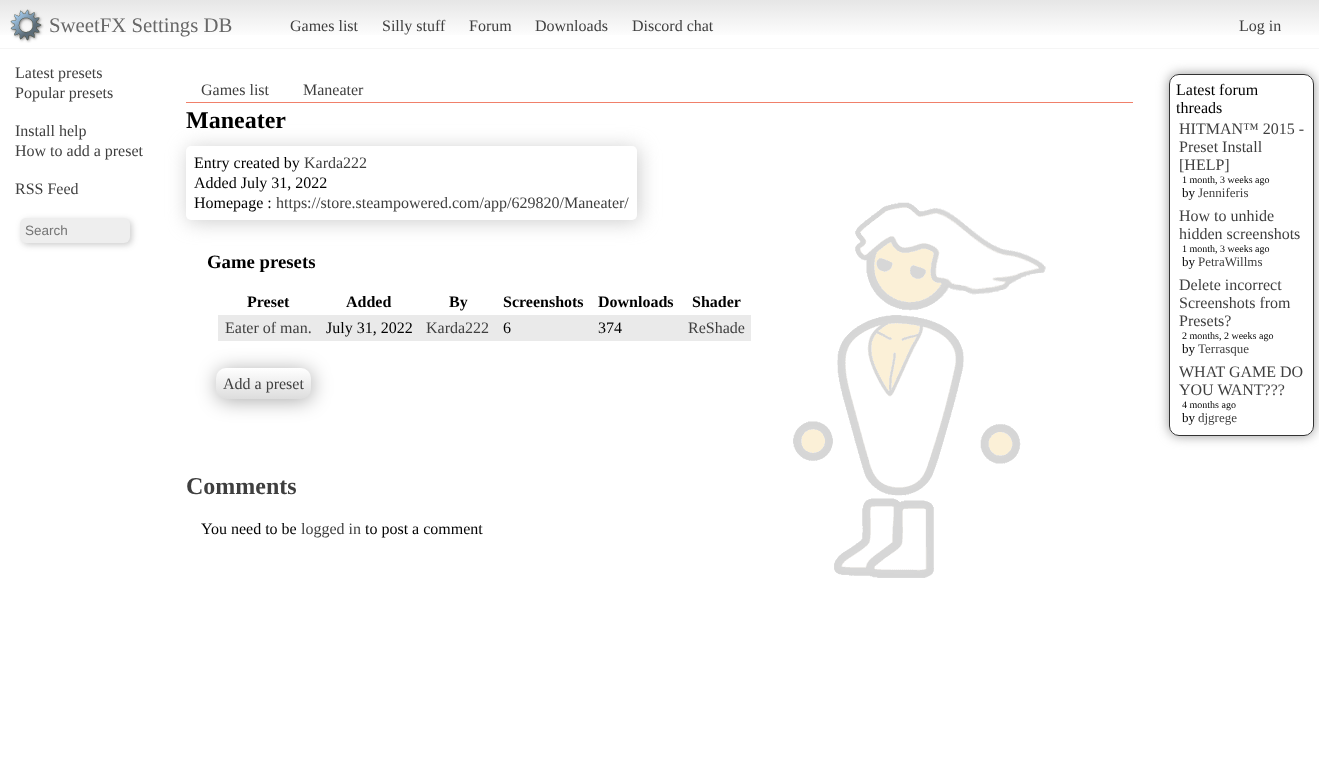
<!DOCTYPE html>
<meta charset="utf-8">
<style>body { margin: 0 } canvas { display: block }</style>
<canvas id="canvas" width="1319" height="782"></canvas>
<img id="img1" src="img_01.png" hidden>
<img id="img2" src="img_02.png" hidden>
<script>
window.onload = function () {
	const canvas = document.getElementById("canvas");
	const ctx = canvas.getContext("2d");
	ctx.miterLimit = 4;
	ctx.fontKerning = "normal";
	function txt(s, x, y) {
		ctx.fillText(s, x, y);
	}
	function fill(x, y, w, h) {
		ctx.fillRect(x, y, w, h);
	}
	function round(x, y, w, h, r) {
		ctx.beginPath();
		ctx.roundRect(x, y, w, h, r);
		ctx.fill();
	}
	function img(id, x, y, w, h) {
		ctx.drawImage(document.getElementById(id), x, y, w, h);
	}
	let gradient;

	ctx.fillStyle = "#FFFFFF";
	fill(0, 0, 1319, 782);
	img("img1", 793, 202, 253, 376);
	gradient = ctx.createLinearGradient(660, 0, 660, 48);
	gradient.addColorStop(0, "#E6E6E6");
	gradient.addColorStop(0.8, "#FFFFFF");
	ctx.fillStyle = gradient;
	fill(0, 0, 1319, 35);
	ctx.fillStyle = "#F5F5F5";
	fill(0, 48, 1319, 1);
	img("img2", 10, 9, 34, 34);
	ctx.fillStyle = "rgba(50, 50, 50, 0.25)";
	ctx.filter = "blur(3px)";
	ctx.beginPath();
	ctx.roundRect(22, 220, 110, 25, 6);
	ctx.fill();
	ctx.filter = "none";
	ctx.fillStyle = "#EEEEEE";
	round(20, 218, 110, 25, 6);
	ctx.fillStyle = "#F0806A";
	fill(186, 102, 947, 1);
	ctx.fillStyle = "rgba(182, 182, 182, 0.68)";
	ctx.filter = "blur(10px)";
	ctx.beginPath();
	ctx.roundRect(188, 148, 451, 74, 5);
	ctx.fill();
	ctx.filter = "none";
	ctx.fillStyle = "#FFFFFF";
	round(186, 146, 451, 74, 5);
	ctx.fillStyle = "#EAEAEA";
	fill(218, 315, 533, 26);
	ctx.fillStyle = "rgba(0, 0, 0, 0.33)";
	ctx.filter = "blur(10px)";
	ctx.beginPath();
	ctx.roundRect(217, 370, 95, 31, 10);
	ctx.fill();
	ctx.filter = "none";
	gradient = ctx.createLinearGradient(264, 368, 264, 399);
	gradient.addColorStop(0, "#FFFFFF");
	gradient.addColorStop(1, "#DDDDDD");
	ctx.fillStyle = gradient;
	round(216, 368, 95, 31, 10);
	ctx.save();
	ctx.beginPath();
	ctx.moveTo(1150, 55);
	ctx.lineTo(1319, 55);
	ctx.lineTo(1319, 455);
	ctx.lineTo(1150, 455);
	ctx.closePath();
	ctx.moveTo(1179, 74);
	ctx.lineTo(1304, 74);
	ctx.bezierCurveTo(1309.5, 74, 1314, 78.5, 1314, 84);
	ctx.lineTo(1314, 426);
	ctx.bezierCurveTo(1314, 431.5, 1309.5, 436, 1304, 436);
	ctx.lineTo(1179, 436);
	ctx.bezierCurveTo(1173.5, 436, 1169, 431.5, 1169, 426);
	ctx.lineTo(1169, 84);
	ctx.bezierCurveTo(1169, 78.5, 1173.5, 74, 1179, 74);
	ctx.closePath();
	ctx.clip("evenodd");
	ctx.fillStyle = "#999999";
	ctx.filter = "blur(6px)";
	ctx.beginPath();
	ctx.roundRect(1169, 74, 145, 362, 10);
	ctx.fill();
	ctx.filter = "none";
	ctx.restore();
	ctx.beginPath();
	ctx.roundRect(1169.5, 74.5, 144, 361, 9.5);
	ctx.strokeStyle = "#333333";
	ctx.stroke();
	ctx.font = "20.75px Liberation Serif";
	ctx.fillStyle = "#686868";
	txt("SweetFX Settings DB", 49, 32);
	ctx.font = "16px Liberation Serif";
	ctx.fillStyle = "#3F3F3F";
	txt("Games list", 290, 31);
	txt("Silly stuff", 382, 31);
	txt("Forum", 469, 31);
	txt("Downloads", 535, 31);
	txt("Discord chat", 632, 31);
	txt("Log in", 1239, 31);
	txt("Latest presets", 15, 78);
	txt("Popular presets", 15, 98);
	txt("Install help", 15, 136);
	txt("How to add a preset", 15, 156);
	txt("RSS Feed", 15, 194);
	ctx.font = "13.5px Liberation Sans";
	ctx.fillStyle = "#757575";
	txt("Search", 25, 235);
	ctx.font = "16px Liberation Serif";
	ctx.fillStyle = "#3F3F3F";
	txt("Games list", 201, 95);
	txt("Maneater", 303, 95);
	ctx.font = "bold 24px Liberation Serif";
	ctx.fillStyle = "#000000";
	txt("Maneater", 186, 128);
	ctx.font = "16px Liberation Serif";
	txt("Entry created by", 194, 168);
	ctx.fillStyle = "#3F3F3F";
	txt("Karda222", 304, 168);
	ctx.fillStyle = "#000000";
	txt("Added July 31, 2022", 194, 188);
	txt("Homepage :", 194, 208);
	ctx.fillStyle = "#3F3F3F";
	txt("https://store.steampowered.com/app/629820/Maneater/", 276, 208);
	ctx.font = "bold 18.75px Liberation Serif";
	ctx.fillStyle = "#000000";
	txt("Game presets", 207, 268);
	ctx.font = "bold 16px Liberation Serif";
	txt("Preset", 247, 307);
	txt("Added", 346, 307);
	txt("By", 449, 307);
	txt("Screenshots", 503, 307);
	txt("Downloads", 598, 307);
	txt("Shader", 692, 307);
	ctx.font = "16px Liberation Serif";
	ctx.fillStyle = "#3F3F3F";
	txt("Eater of man.", 225, 333);
	ctx.fillStyle = "#000000";
	txt("July 31, 2022", 326, 333);
	ctx.fillStyle = "#3F3F3F";
	txt("Karda222", 426, 333);
	ctx.fillStyle = "#000000";
	txt("6", 503, 333);
	txt("374", 598, 333);
	ctx.fillStyle = "#3F3F3F";
	txt("ReShade", 688, 333);
	txt("Add a preset", 223, 389);
	ctx.font = "bold 24px Liberation Serif";
	txt("Comments", 186, 494);
	ctx.font = "16px Liberation Serif";
	ctx.fillStyle = "#000000";
	txt("You need to be", 201, 534);
	ctx.fillStyle = "#3F3F3F";
	txt("logged in", 301, 534);
	ctx.fillStyle = "#000000";
	txt("to post a comment", 365, 534);
	txt("Latest forum", 1176, 95);
	txt("threads", 1176, 113);
	ctx.fillStyle = "#3F3F3F";
	txt("HITMAN™ 2015 -", 1179, 134);
	txt("Preset Install", 1179, 152);
	txt("[HELP]", 1179, 170);
	ctx.font = "10px Liberation Serif";
	ctx.fillStyle = "#000000";
	txt("1 month, 3 weeks ago", 1182, 183);
	ctx.font = "13px Liberation Serif";
	txt("by", 1182, 197);
	ctx.fillStyle = "#3F3F3F";
	txt("Jenniferis", 1198, 197);
	ctx.font = "16px Liberation Serif";
	txt("How to unhide", 1179, 221);
	txt("hidden screenshots", 1179, 239);
	ctx.font = "10px Liberation Serif";
	ctx.fillStyle = "#000000";
	txt("1 month, 3 weeks ago", 1182, 252);
	ctx.font = "13px Liberation Serif";
	txt("by", 1182, 266);
	ctx.fillStyle = "#3F3F3F";
	txt("PetraWillms", 1198, 266);
	ctx.font = "16px Liberation Serif";
	txt("Delete incorrect", 1179, 290);
	txt("Screenshots from", 1179, 308);
	txt("Presets?", 1179, 326);
	ctx.font = "10px Liberation Serif";
	ctx.fillStyle = "#000000";
	txt("2 months, 2 weeks ago", 1182, 339);
	ctx.font = "13px Liberation Serif";
	txt("by", 1182, 353);
	ctx.fillStyle = "#3F3F3F";
	txt("Terrasque", 1198, 353);
	ctx.font = "16px Liberation Serif";
	txt("WHAT GAME DO", 1179, 377);
	txt("YOU WANT???", 1179, 395);
	ctx.font = "10px Liberation Serif";
	ctx.fillStyle = "#000000";
	txt("4 months ago", 1182, 408);
	ctx.font = "13px Liberation Serif";
	txt("by", 1182, 422);
	ctx.fillStyle = "#3F3F3F";
	txt("djgrege", 1198, 422);
};
</script>
